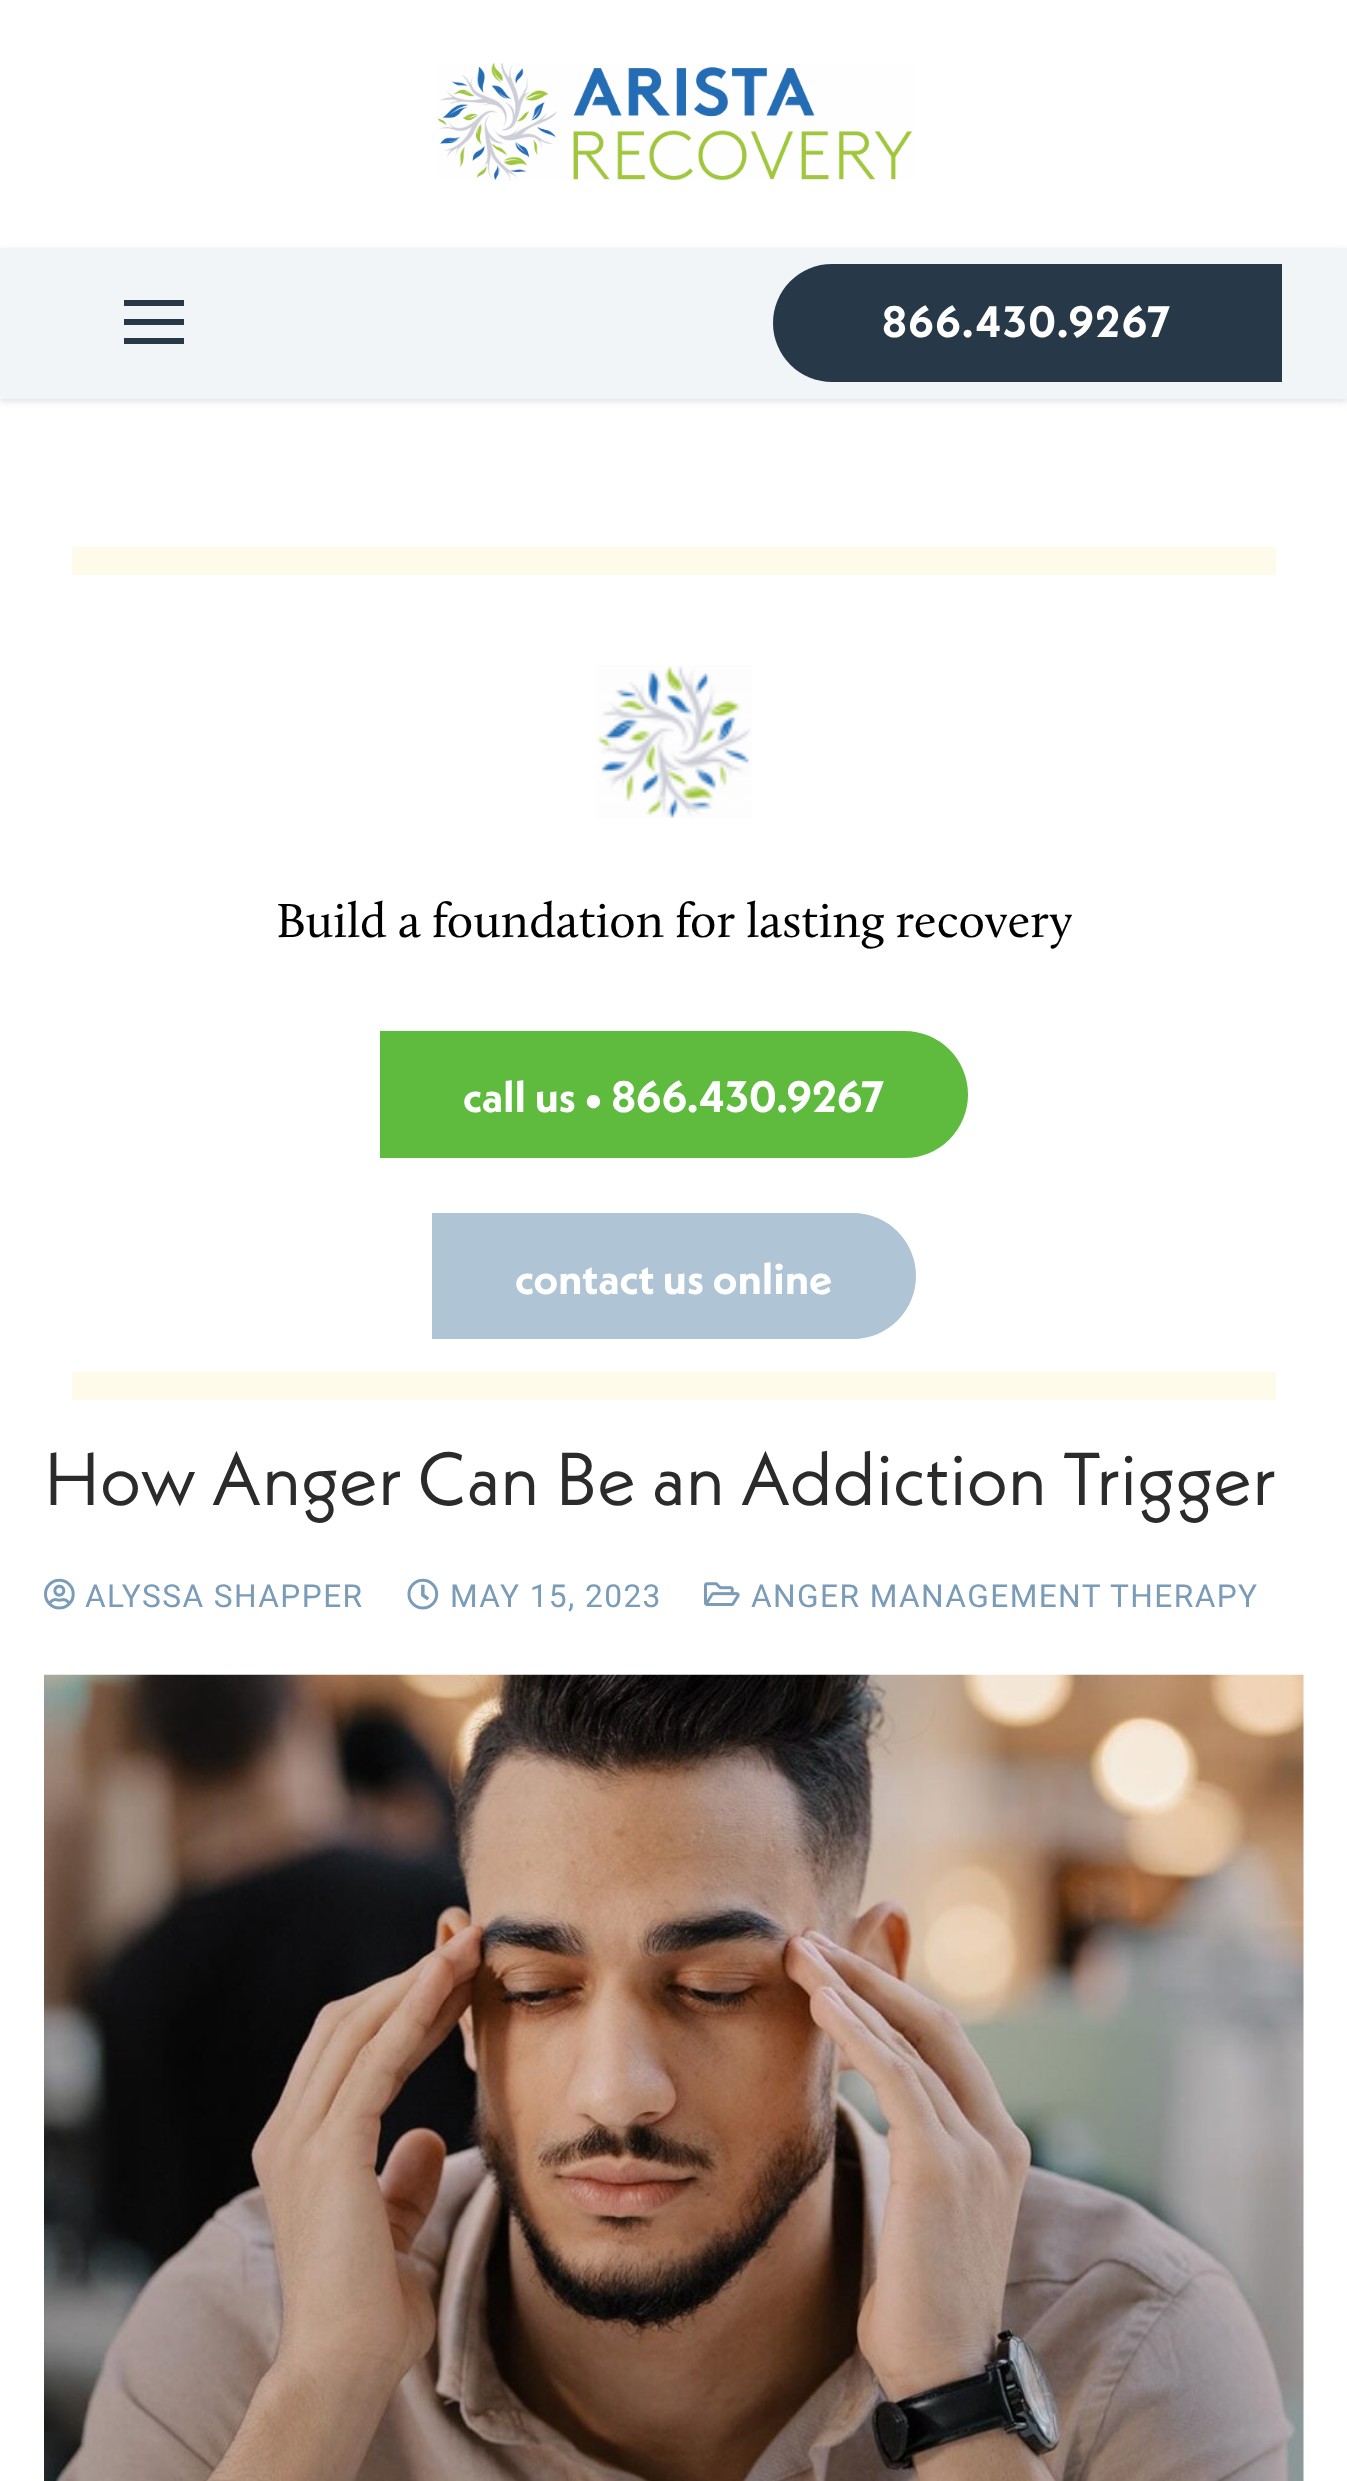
<!DOCTYPE html>
<meta charset="utf-8">
<style>body { margin: 0 } canvas { display: block }</style>
<canvas id="canvas" width="1347" height="2481"></canvas>
<img id="img1" src="img_01.png" hidden>
<img id="img2" src="img_02.png" hidden>
<img id="img3" src="img_03.png" hidden>
<img id="img4" src="img_04.png" hidden>
<img id="img5" src="img_05.png" hidden>
<img id="img6" src="img_06.png" hidden>
<script>
window.onload = function () {
	const canvas = document.getElementById("canvas");
	const ctx = canvas.getContext("2d");
	ctx.miterLimit = 4;
	ctx.fontKerning = "normal";
	function txt(s, x, y) {
		ctx.fillText(s, x, y);
	}
	function fill(x, y, w, h) {
		ctx.fillRect(x, y, w, h);
	}
	function img(id, x, y, w, h) {
		ctx.drawImage(document.getElementById(id), x, y, w, h);
	}

	ctx.fillStyle = "#FFFFFF";
	fill(0, 0, 1347, 2481);
	img("img1", 437, 63, 476, 118);
	ctx.fillStyle = "#E1E5EA";
	ctx.filter = "blur(3px)";
	ctx.beginPath();
	ctx.rect(0, 250, 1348, 152);
	ctx.fill();
	ctx.filter = "none";
	ctx.fillStyle = "#F2F5F8";
	fill(0, 248, 1347, 151);
	ctx.fillStyle = "#273948";
	fill(124, 319, 60, 6);
	fill(124, 300, 60, 6);
	fill(124, 338, 60, 6);
	ctx.beginPath();
	ctx.roundRect(773, 264, 509, 118, [59, 0, 0, 59]);
	ctx.fill();
	ctx.fillStyle = "#FFFBEB";
	fill(72, 547, 1204, 28);
	img("img2", 596, 665, 156, 154);
	ctx.fillStyle = "#5EBB3D";
	ctx.beginPath();
	ctx.roundRect(380, 1031, 588, 127, [0, 63.5, 63.5, 0]);
	ctx.fill();
	ctx.fillStyle = "#AFC4D4";
	ctx.beginPath();
	ctx.roundRect(432, 1213, 484, 126, [0, 63, 63, 0]);
	ctx.fill();
	ctx.fillStyle = "#FFFBEB";
	fill(72, 1372, 1204, 28);
	img("img3", 44, 1578, 31, 32);
	img("img4", 407, 1578, 32, 32);
	img("img5", 704, 1582, 36, 24);
	img("img6", 44, 1674, 1260, 807);
	ctx.letterSpacing = "1.4px";
	ctx.font = "bold 44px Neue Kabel";
	ctx.fillStyle = "#FFFFFF";
	txt("866.430.9267", 882, 337);
	ctx.letterSpacing = "0px";
	ctx.font = "49.5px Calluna";
	ctx.fillStyle = "#000000";
	txt("Build a foundation for lasting recovery", 276, 937);
	ctx.font = "bold 44px Neue Kabel";
	ctx.fillStyle = "#FFFFFF";
	txt("call us • 866.430.9267", 463, 1112);
	txt("contact us online", 515, 1294);
	ctx.font = "74.75px Neue Kabel";
	ctx.fillStyle = "#2B2B2B";
	txt("How Anger Can Be an Addiction Trigger", 44, 1505);
	ctx.letterSpacing = "1.4px";
	ctx.font = "31.7px Roboto";
	ctx.fillStyle = "#7A9CB8";
	txt("ALYSSA SHAPPER", 85, 1607);
	txt("MAY 15, 2023", 450, 1607);
	txt("ANGER MANAGEMENT THERAPY", 751, 1607);
};
</script>
